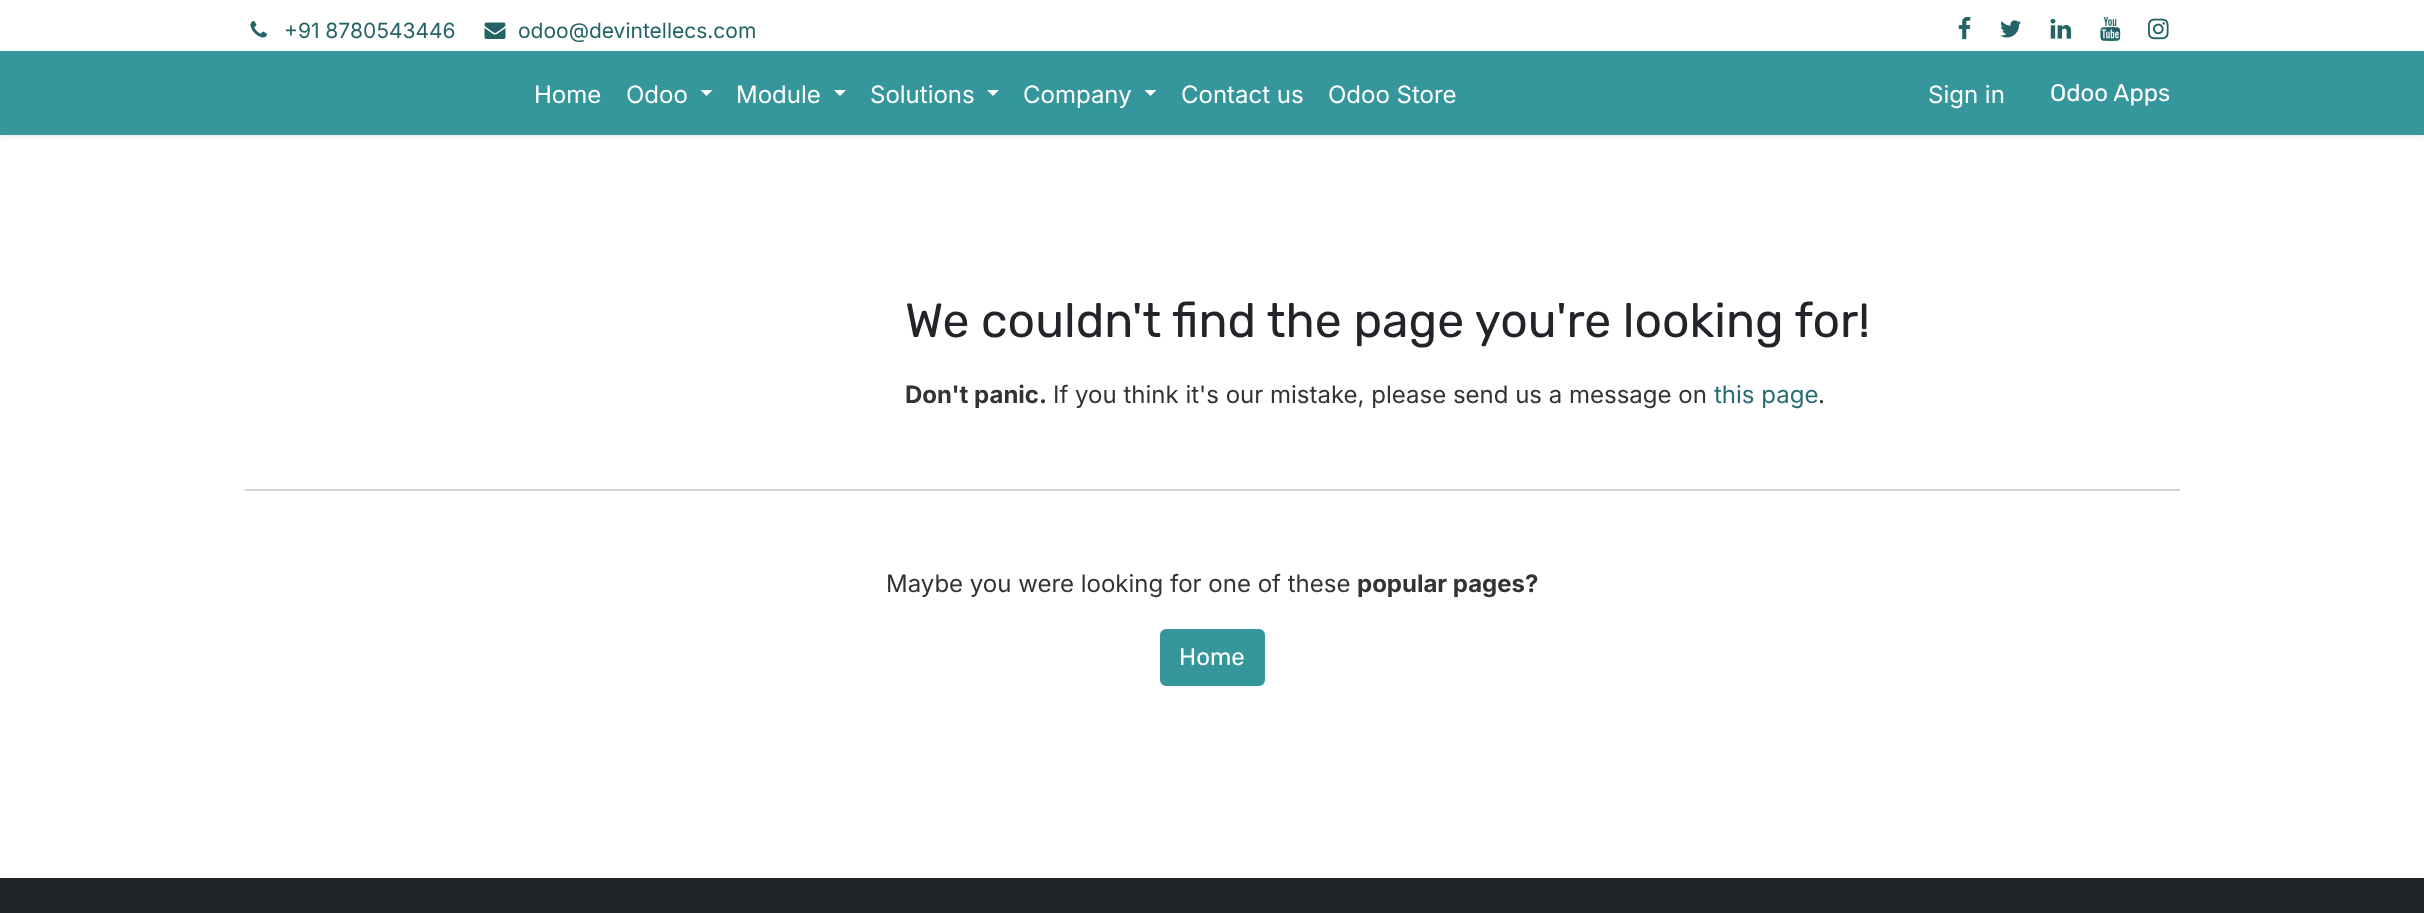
<!DOCTYPE html>
<meta charset="utf-8">
<style>body { margin: 0 } canvas { display: block }</style>
<canvas id="canvas" width="2424" height="913"></canvas>
<img id="img1" src="img_01.png" hidden>
<img id="img2" src="img_02.png" hidden>
<img id="img3" src="img_03.png" hidden>
<img id="img4" src="img_04.png" hidden>
<img id="img5" src="img_05.png" hidden>
<img id="img6" src="img_06.png" hidden>
<img id="img7" src="img_07.png" hidden>
<script>
window.onload = function () {
	const canvas = document.getElementById("canvas");
	const ctx = canvas.getContext("2d");
	ctx.miterLimit = 4;
	ctx.fontKerning = "normal";
	function txt(s, x, y) {
		ctx.fillText(s, x, y);
	}
	function fill(x, y, w, h) {
		ctx.fillRect(x, y, w, h);
	}
	function img(id, x, y, w, h) {
		ctx.drawImage(document.getElementById(id), x, y, w, h);
	}

	ctx.fillStyle = "#FFFFFF";
	fill(0, 0, 2424, 913);
	ctx.fillStyle = "#35979C";
	fill(0, 51, 2424, 84);
	img("img1", 250, 21, 17, 17);
	img("img2", 484, 22, 22, 17);
	img("img3", 1958, 16, 13, 24);
	img("img4", 2000, 20, 21, 18);
	img("img5", 2050, 18, 22, 21);
	img("img6", 2100, 16, 21, 25);
	img("img7", 2148, 18, 21, 22);
	ctx.save();
	ctx.beginPath();
	ctx.rect(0, 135, 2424, 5);
	ctx.clip();
	ctx.fillStyle = "rgba(0, 0, 0, 0.07)";
	ctx.filter = "blur(3px)";
	ctx.beginPath();
	ctx.rect(0, 54, 2424, 84);
	ctx.fill();
	ctx.filter = "none";
	ctx.restore();
	ctx.fillStyle = "#FFFFFF";
	ctx.beginPath();
	ctx.moveTo(700.5, 90);
	ctx.lineTo(712.5, 90);
	ctx.lineTo(706.5, 96);
	ctx.closePath();
	ctx.fill();
	ctx.beginPath();
	ctx.moveTo(834, 90);
	ctx.lineTo(846, 90);
	ctx.lineTo(840, 96);
	ctx.closePath();
	ctx.fill();
	ctx.beginPath();
	ctx.moveTo(987, 90);
	ctx.lineTo(999, 90);
	ctx.lineTo(993, 96);
	ctx.closePath();
	ctx.fill();
	ctx.beginPath();
	ctx.moveTo(1144.5, 90);
	ctx.lineTo(1156.5, 90);
	ctx.lineTo(1150.5, 96);
	ctx.closePath();
	ctx.fill();
	ctx.fillStyle = "#CED4DA";
	fill(245, 489, 1935, 2);
	ctx.fillStyle = "#35979C";
	ctx.beginPath();
	ctx.roundRect(1161, 630, 103, 55, 5);
	ctx.fill();
	ctx.strokeStyle = "#35979C";
	ctx.lineWidth = 2;
	ctx.stroke();
	ctx.fillStyle = "#212529";
	fill(0, 878, 2424, 35);
	ctx.font = "21px Inter";
	ctx.fillStyle = "#236366";
	txt("+91 8780543446", 284, 38);
	txt("odoo@devintellecs.com", 518, 38);
	ctx.font = "24px Inter";
	ctx.fillStyle = "#FFFFFF";
	txt("Home", 534, 103);
	txt("Odoo", 626, 103);
	txt("Module", 736, 103);
	txt("Solutions", 870, 103);
	txt("Company", 1023, 103);
	txt("Contact us", 1181, 103);
	txt("Odoo Store", 1328, 103);
	txt("Sign in", 1928, 103);
	ctx.font = "24px Rubik";
	txt("Odoo Apps", 2050, 101);
	ctx.font = "48px Rubik";
	ctx.fillStyle = "#212529";
	txt("We couldn't find the page you're looking for!", 905, 337);
	ctx.font = "bold 24px Inter";
	ctx.fillStyle = "#333333";
	txt("Don't panic.", 905, 403);
	ctx.font = "24px Inter";
	txt("If you think it's our mistake, please send us a message on", 1053, 403);
	ctx.fillStyle = "#276E72";
	txt("this page", 1714, 403);
	ctx.fillStyle = "#333333";
	txt(".", 1818, 403);
	txt("Maybe you were looking for one of these", 886, 592);
	ctx.font = "bold 24px Inter";
	txt("popular pages?", 1357, 592);
	ctx.font = "24px Rubik";
	ctx.fillStyle = "#FFFFFF";
	txt("Home", 1179, 665);
};
</script>
